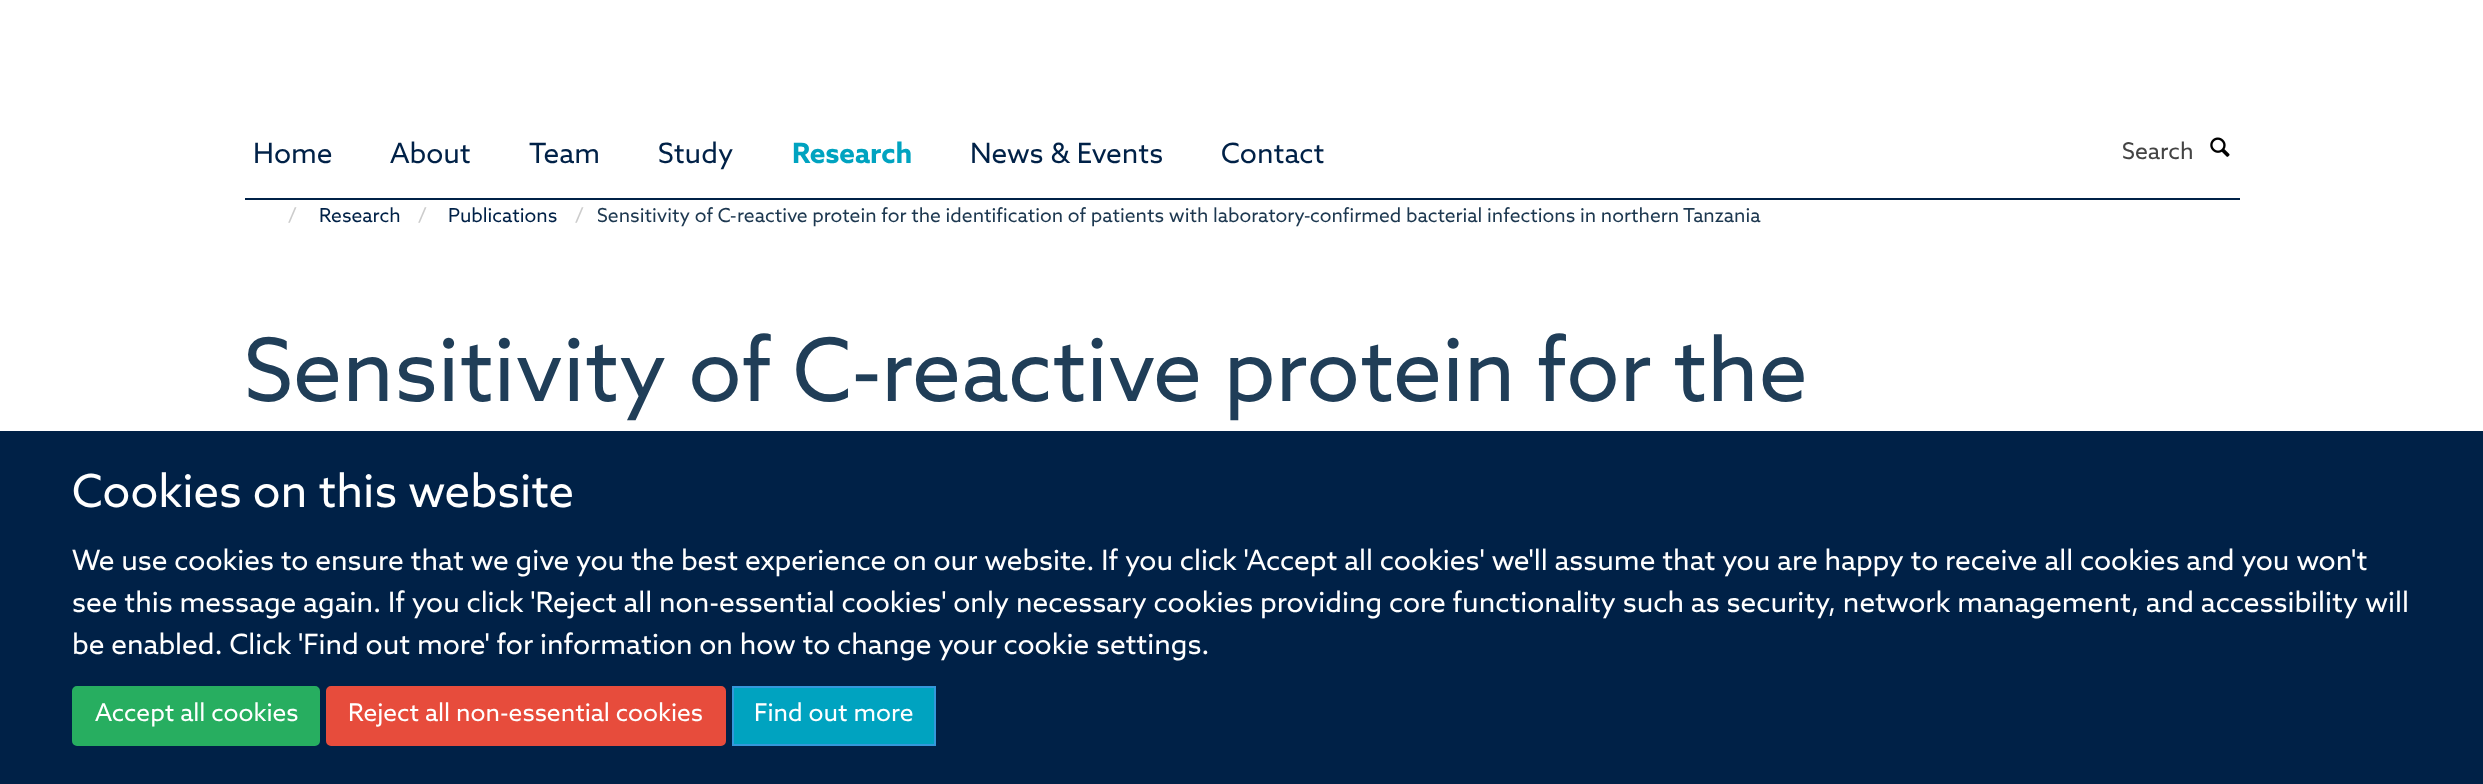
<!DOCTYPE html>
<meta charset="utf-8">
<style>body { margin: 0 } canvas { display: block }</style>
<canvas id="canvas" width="2483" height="784"></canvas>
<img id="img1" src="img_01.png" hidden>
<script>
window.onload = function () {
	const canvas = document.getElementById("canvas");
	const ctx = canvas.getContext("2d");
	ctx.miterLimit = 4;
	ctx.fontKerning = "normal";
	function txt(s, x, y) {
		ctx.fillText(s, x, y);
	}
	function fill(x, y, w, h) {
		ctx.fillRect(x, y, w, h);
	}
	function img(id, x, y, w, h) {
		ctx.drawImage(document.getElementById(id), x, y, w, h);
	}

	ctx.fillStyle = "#FFFFFF";
	fill(0, 0, 2483, 784);
	ctx.fillStyle = "#002147";
	fill(245, 198, 1995, 2);
	img("img1", 2210, 137, 20, 20);
	fill(0, 431, 2483, 353);
	ctx.fillStyle = "#27AE60";
	ctx.beginPath();
	ctx.roundRect(73, 687, 246, 58, 4);
	ctx.fill();
	ctx.strokeStyle = "#27AE60";
	ctx.lineWidth = 2;
	ctx.stroke();
	ctx.fillStyle = "#E74C3C";
	ctx.beginPath();
	ctx.roundRect(327, 687, 398, 58, 4);
	ctx.fill();
	ctx.strokeStyle = "#E74C3C";
	ctx.stroke();
	ctx.fillStyle = "#00A3C0";
	ctx.beginPath();
	ctx.rect(733, 687, 202, 58);
	ctx.fill();
	ctx.strokeStyle = "#3498DB";
	ctx.stroke();
	ctx.font = "28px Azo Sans";
	ctx.fillStyle = "#002147";
	txt("Home", 253, 163);
	txt("About", 390, 163);
	txt("Team", 529, 163);
	txt("Study", 658, 163);
	ctx.font = "bold 28px Azo Sans";
	ctx.fillStyle = "#00A3C0";
	txt("Research", 792, 163);
	ctx.font = "28px Azo Sans";
	ctx.fillStyle = "#002147";
	txt("News & Events", 970, 163);
	txt("Contact", 1221, 163);
	ctx.font = "23px Azo Sans";
	ctx.fillStyle = "#444444";
	txt("Search", 2122, 159);
	ctx.font = "19.25px Azo Sans";
	ctx.fillStyle = "#CCCCCC";
	txt("/", 288, 222);
	ctx.fillStyle = "#002147";
	txt("Research", 319, 222);
	ctx.fillStyle = "#CCCCCC";
	txt("/", 418, 222);
	ctx.fillStyle = "#002147";
	txt("Publications", 448, 222);
	ctx.fillStyle = "#CCCCCC";
	txt("/", 575, 222);
	ctx.fillStyle = "#1D3850";
	txt("Sensitivity of C", 597, 222);
	ctx.font = "19.25px Liberation Sans";
	txt("‐", 730, 222);
	ctx.font = "19.25px Azo Sans";
	txt("reactive protein for the identification of patients with laboratory", 737, 222);
	ctx.font = "19.25px Liberation Sans";
	txt("‐", 1304, 222);
	ctx.font = "19.25px Azo Sans";
	txt("confirmed bacterial infections in northern Tanzania", 1310, 222);
	ctx.font = "87.5px Azo Sans";
	ctx.fillStyle = "#203E58";
	txt("Sensitivity of C", 244, 401);
	ctx.font = "87.5px Liberation Sans";
	txt("‐", 852, 401);
	ctx.font = "87.5px Azo Sans";
	txt("reactive protein for the", 881, 401);
	ctx.font = "45.5px Azo Sans";
	ctx.fillStyle = "#FFFFFF";
	txt("Cookies on this website", 72, 507);
	ctx.font = "28px Azo Sans";
	txt("We use cookies to ensure that we give you the best experience on our website. If you click 'Accept all cookies' we'll assume that you are happy to receive all cookies and you won't", 72, 570);
	txt("see this message again. If you click 'Reject all non-essential cookies' only necessary cookies providing core functionality such as security, network management, and accessibility will", 72, 612);
	txt("be enabled. Click 'Find out more' for information on how to change your cookie settings.", 72, 654);
	ctx.font = "24.5px Azo Sans";
	txt("Accept all cookies", 95, 721);
	txt("Reject all non-essential cookies", 348, 721);
	txt("Find out more", 754, 721);
};
</script>
